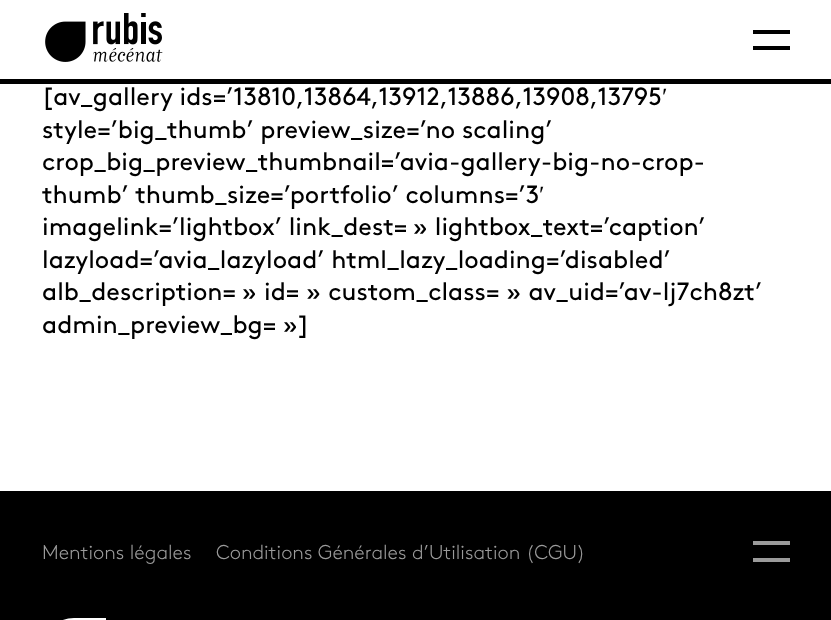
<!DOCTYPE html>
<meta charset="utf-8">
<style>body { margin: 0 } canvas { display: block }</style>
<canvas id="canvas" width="831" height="620"></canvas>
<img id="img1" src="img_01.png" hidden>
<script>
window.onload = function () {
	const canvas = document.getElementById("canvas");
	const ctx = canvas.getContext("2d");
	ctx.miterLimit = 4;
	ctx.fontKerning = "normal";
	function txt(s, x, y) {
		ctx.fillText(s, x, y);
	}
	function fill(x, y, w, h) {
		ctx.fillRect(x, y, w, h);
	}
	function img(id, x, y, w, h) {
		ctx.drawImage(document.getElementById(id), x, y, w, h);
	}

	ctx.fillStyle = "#FFFFFF";
	fill(0, 0, 831, 620);
	ctx.fillStyle = "#000000";
	fill(0, 79, 831, 5);
	img("img1", 45, 13, 118, 49);
	fill(753, 30, 37, 4);
	fill(753, 46, 37, 4);
	fill(0, 491, 831, 129);
	ctx.fillStyle = "#9B9B9B";
	fill(753, 541, 37, 4);
	fill(753, 558, 37, 4);
	ctx.fillStyle = "#FFFFFF";
	ctx.beginPath();
	ctx.moveTo(41, 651);
	ctx.bezierCurveTo(41, 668, 56, 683, 74, 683);
	ctx.bezierCurveTo(91, 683, 106, 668, 106, 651);
	ctx.lineTo(106, 618);
	ctx.lineTo(74, 618);
	ctx.bezierCurveTo(56, 618, 41, 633, 41, 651);
	ctx.closePath();
	ctx.fill();
	ctx.font = "25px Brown";
	ctx.fillStyle = "#000000";
	txt("[av_gallery ids=’13810,13864,13912,13886,13908,13795", 42, 105);
	ctx.font = "25px Liberation Serif";
	txt("′", 662, 105);
	ctx.font = "25px Brown";
	txt("style=’big_thumb’ preview_size=’no scaling’", 42, 138);
	txt("crop_big_preview_thumbnail=’avia-gallery-big-no-crop-", 42, 170);
	txt("thumb’ thumb_size=’portfolio’ columns=’3", 42, 203);
	ctx.font = "25px Liberation Serif";
	txt("′", 539, 203);
	ctx.font = "25px Brown";
	txt("imagelink=’lightbox’ link_dest=", 42, 235);
	txt("» lightbox_text=’caption’", 413, 235);
	txt("lazyload=’avia_lazyload’ html_lazy_loading=’disabled’", 42, 268);
	txt("alb_description=", 42, 300);
	ctx.wordSpacing = "0.25px";
	txt("» id= » custom_class= » av_uid=’av-lj7ch8zt’", 242, 300);
	ctx.wordSpacing = "0px";
	txt("admin_preview_bg= »]", 42, 333);
	ctx.font = "300 20px Brown";
	ctx.fillStyle = "#9B9B9B";
	txt("Mentions légales", 42, 559);
	txt("Conditions Générales d’Utilisation (CGU)", 216, 559);
};
</script>
